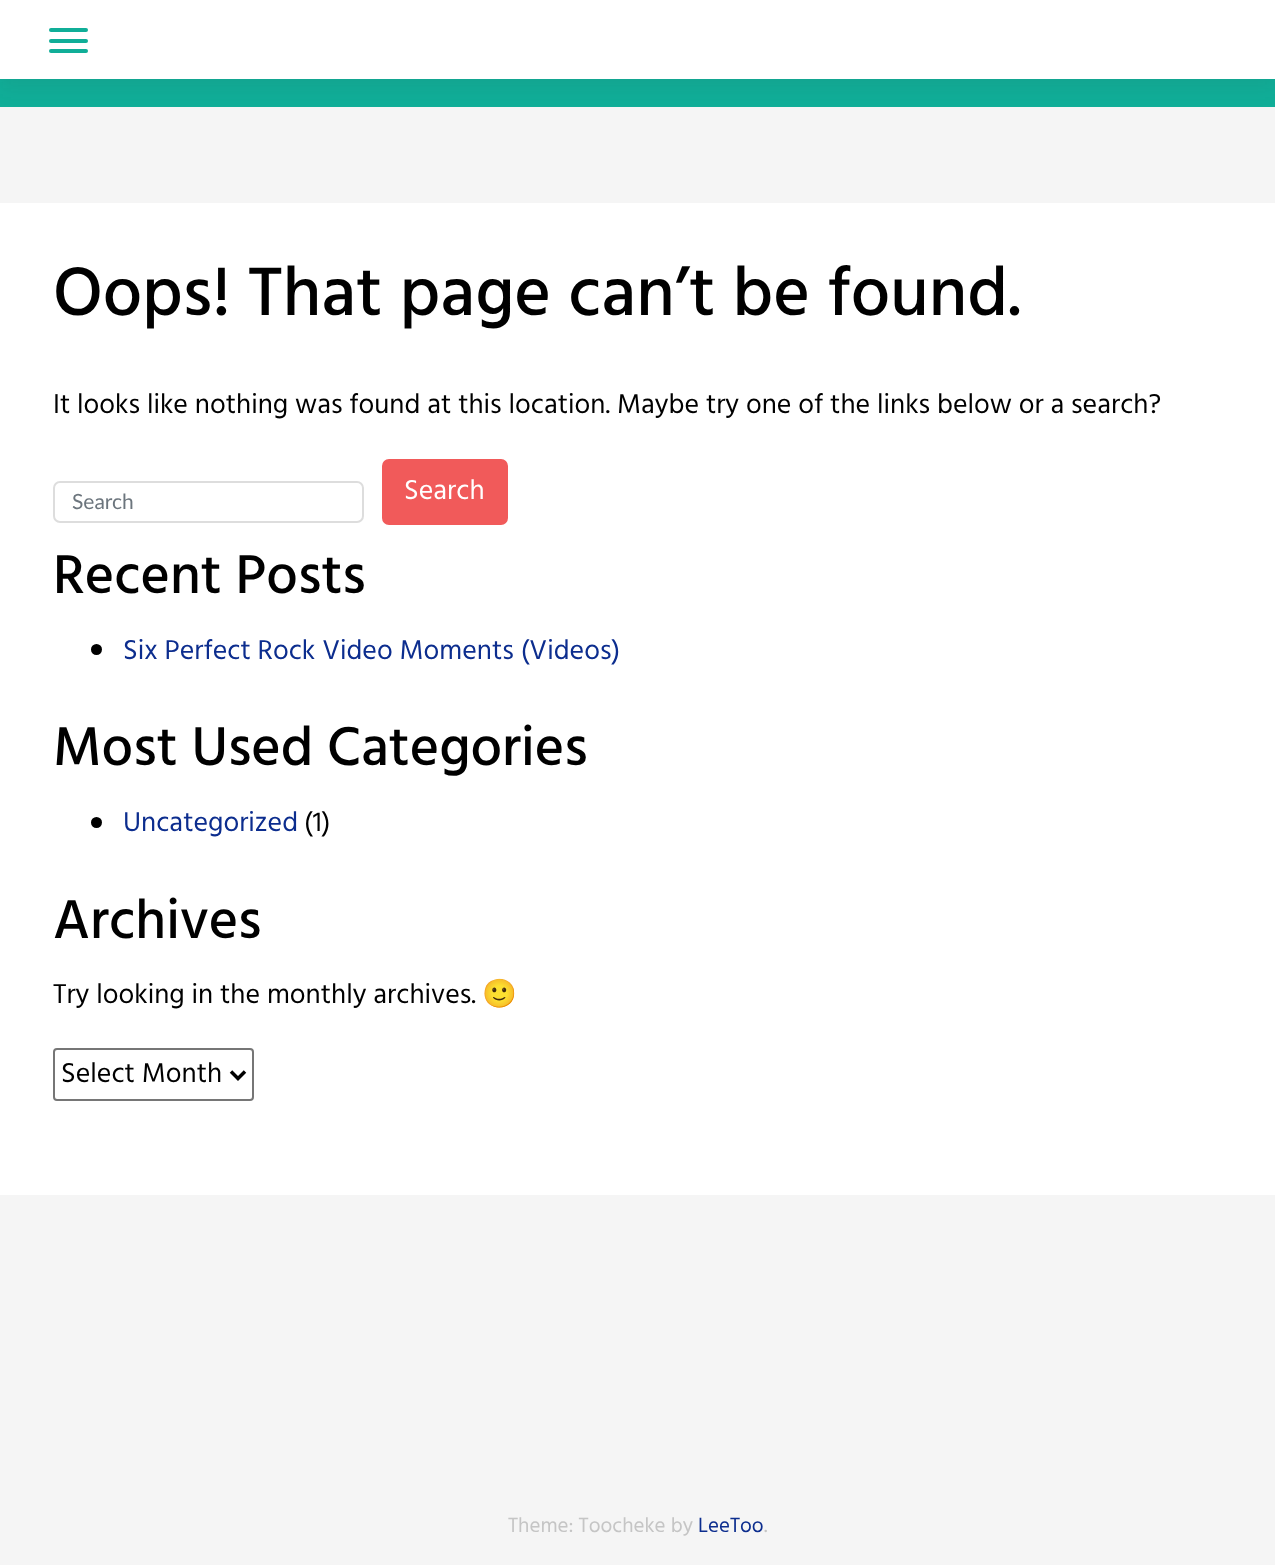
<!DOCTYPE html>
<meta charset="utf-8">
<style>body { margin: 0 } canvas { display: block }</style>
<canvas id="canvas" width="1275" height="1565"></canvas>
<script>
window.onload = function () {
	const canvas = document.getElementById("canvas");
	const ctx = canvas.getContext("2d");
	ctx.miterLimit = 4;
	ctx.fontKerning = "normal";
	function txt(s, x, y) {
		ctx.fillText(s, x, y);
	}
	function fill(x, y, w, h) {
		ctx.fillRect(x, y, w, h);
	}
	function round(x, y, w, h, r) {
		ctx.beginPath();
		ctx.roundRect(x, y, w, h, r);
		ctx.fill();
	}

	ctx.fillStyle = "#F5F5F5";
	fill(0, 0, 1275, 1565);
	ctx.fillStyle = "#10AE98";
	fill(0, 79, 1275, 28);
	ctx.fillStyle = "rgba(50, 50, 50, 0.08)";
	ctx.filter = "blur(9.5px)";
	ctx.beginPath();
	ctx.rect(0, 9, 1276, 79);
	ctx.fill();
	ctx.filter = "none";
	ctx.fillStyle = "#FFFFFF";
	fill(0, 0, 1275, 79);
	ctx.fillStyle = "#10AE98";
	round(49, 28, 39, 4, 2);
	round(49, 39, 39, 4, 2);
	round(49, 49, 39, 4, 2);
	ctx.fillStyle = "#FFFFFF";
	fill(0, 203, 1275, 992);
	ctx.beginPath();
	ctx.roundRect(54, 482, 309, 40, 6);
	ctx.strokeStyle = "#DDDDDD";
	ctx.lineWidth = 2;
	ctx.stroke();
	ctx.fillStyle = "#F15A5A";
	ctx.beginPath();
	ctx.roundRect(383, 460, 124, 64, 6);
	ctx.fill();
	ctx.strokeStyle = "#F15A5A";
	ctx.stroke();
	ctx.fillStyle = "#000000";
	ctx.beginPath();
	ctx.arc(96.5, 649.5, 5.5, 0, Math.PI * 2);
	ctx.fill();
	ctx.beginPath();
	ctx.arc(96.5, 822.5, 5.5, 0, Math.PI * 2);
	ctx.fill();
	ctx.beginPath();
	ctx.roundRect(54, 1049, 199, 51, 3);
	ctx.strokeStyle = "#767676";
	ctx.stroke();
	ctx.beginPath();
	ctx.moveTo(231, 1071.5);
	ctx.lineTo(238, 1078.5);
	ctx.lineTo(245, 1071.5);
	ctx.strokeStyle = "#000000";
	ctx.lineWidth = 3.5;
	ctx.stroke();
	ctx.font = "500 70px Hind";
	txt("Oops! That page can’t be found.", 53, 315);
	ctx.font = "28px Hind";
	txt("It looks like nothing was found at this location. Maybe try one of the links below or a search?", 53, 413);
	ctx.font = "21px Lato";
	ctx.fillStyle = "#6C757D";
	txt("Search", 72, 509);
	ctx.font = "28px Hind";
	ctx.fillStyle = "#FFFFFF";
	txt("Search", 404, 499);
	ctx.font = "500 56px Hind";
	ctx.fillStyle = "#000000";
	txt("Recent Posts", 53, 593);
	ctx.font = "28px Hind";
	ctx.fillStyle = "#0C2D8E";
	txt("Six Perfect Rock Video Moments (Videos)", 123, 659);
	ctx.font = "500 56px Hind";
	ctx.fillStyle = "#000000";
	txt("Most Used Categories", 53, 765);
	ctx.font = "28px Hind";
	ctx.fillStyle = "#0C2D8E";
	txt("Uncategorized", 123, 831);
	ctx.fillStyle = "#000000";
	txt("(1)", 304, 831);
	ctx.font = "500 56px Hind";
	txt("Archives", 53, 938);
	ctx.font = "28px Hind";
	txt("Try looking in the monthly archives.", 53, 1003);
	ctx.font = "28px Noto Color Emoji";
	txt("🙂", 482, 1003);
	ctx.font = "28px Hind";
	txt("Select Month", 61, 1082);
	ctx.font = "21px Hind";
	ctx.fillStyle = "#C5C5C5";
	txt("Theme: Toocheke by", 508, 1532);
	ctx.fillStyle = "#0C2D8E";
	txt("LeeToo", 698, 1532);
	ctx.fillStyle = "#C5C5C5";
	txt(".", 764, 1532);
};
</script>
